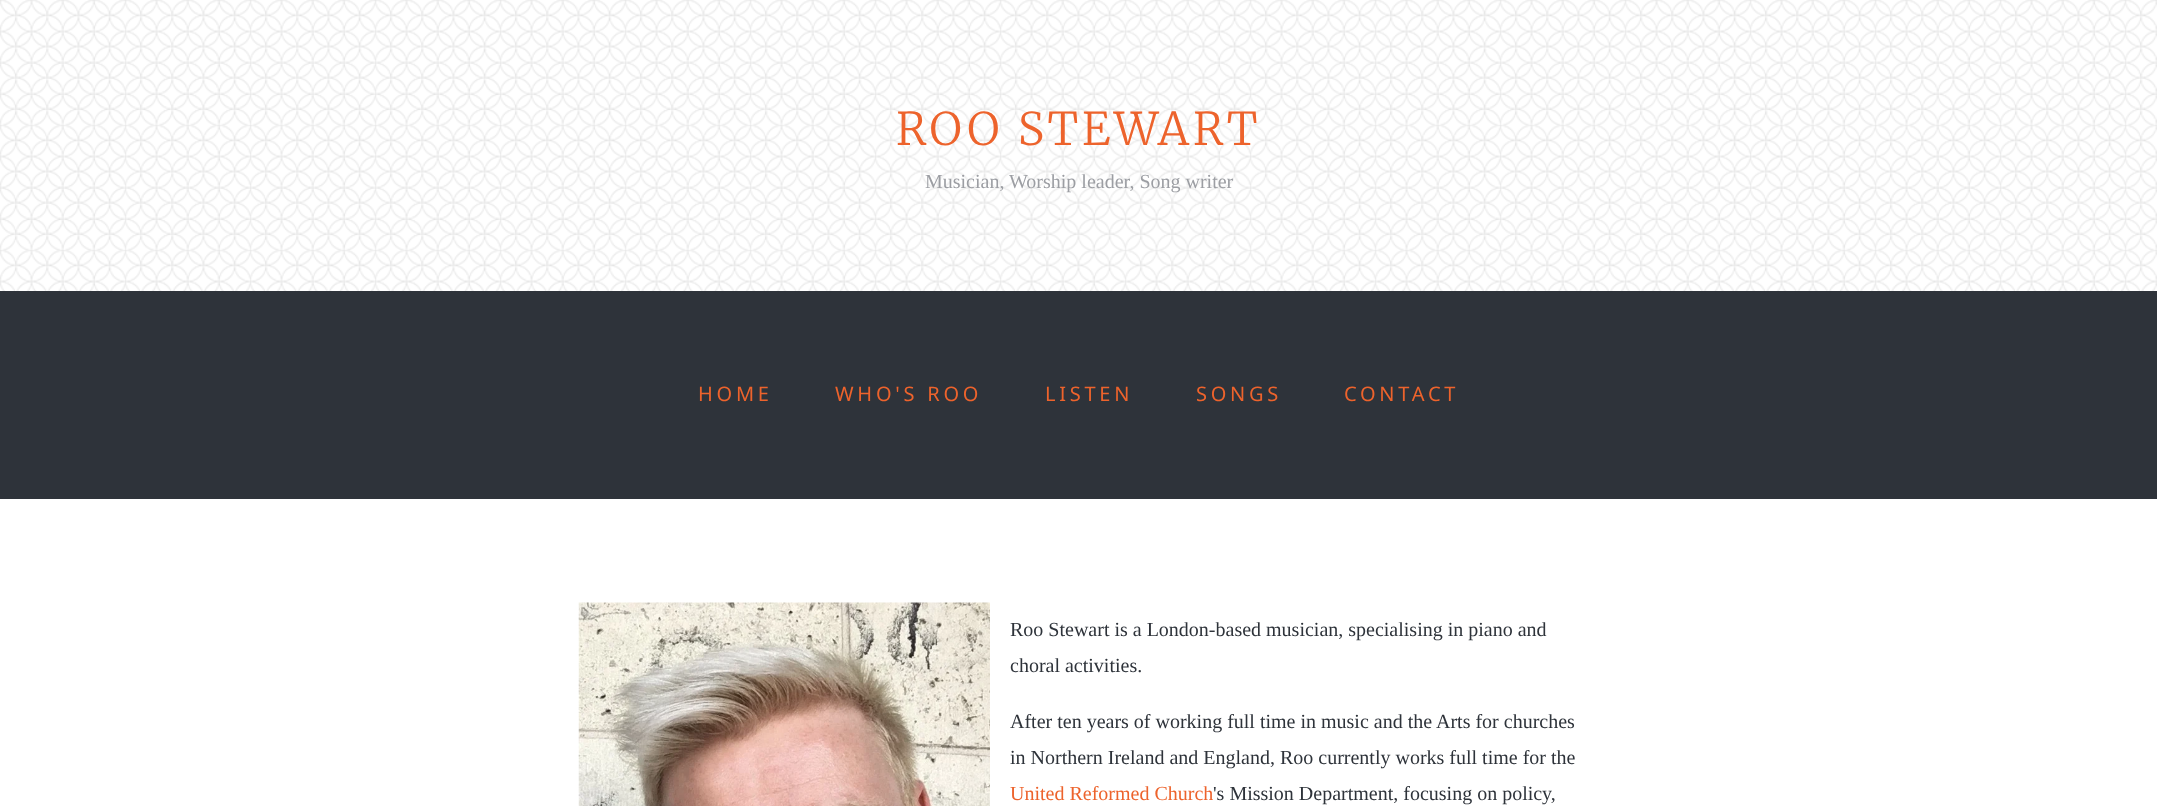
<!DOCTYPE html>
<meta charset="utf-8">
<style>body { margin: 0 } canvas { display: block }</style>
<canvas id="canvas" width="2157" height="806"></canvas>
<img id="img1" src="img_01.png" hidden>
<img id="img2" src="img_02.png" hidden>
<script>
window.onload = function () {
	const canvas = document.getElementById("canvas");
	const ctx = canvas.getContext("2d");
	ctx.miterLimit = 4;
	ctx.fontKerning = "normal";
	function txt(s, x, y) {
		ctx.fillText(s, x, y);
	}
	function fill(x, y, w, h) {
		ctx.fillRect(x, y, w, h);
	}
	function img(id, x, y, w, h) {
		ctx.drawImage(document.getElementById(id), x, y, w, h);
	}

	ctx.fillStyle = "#FFFFFF";
	fill(0, 0, 2157, 806);
	img("img1", 0, 0, 2157, 291);
	ctx.fillStyle = "#2E333A";
	fill(0, 291, 2157, 208);
	img("img2", 578, 602, 412, 204);
	ctx.letterSpacing = "3.75px";
	ctx.font = "300 45px Merriweather";
	ctx.fillStyle = "#ED632C";
	txt("ROO STEWART", 896, 145);
	ctx.letterSpacing = "0px";
	ctx.font = "20px Liberation Serif";
	ctx.fillStyle = "#9C9EA3";
	txt("Musician, Worship leader, Song writer", 925, 188);
	ctx.letterSpacing = "3.75px";
	ctx.font = "20px Noto Sans";
	ctx.fillStyle = "#ED632C";
	txt("HOME", 698, 401);
	txt("WHO'S ROO", 835, 401);
	txt("LISTEN", 1045, 401);
	txt("SONGS", 1196, 401);
	txt("CONTACT", 1344, 401);
	ctx.letterSpacing = "0px";
	ctx.font = "20px Liberation Serif";
	ctx.fillStyle = "#2E333A";
	txt("Roo Stewart is a London-based musician, specialising in piano and", 1010, 636);
	txt("choral activities.", 1010, 672);
	txt("After ten years of working full time in music and the Arts for churches", 1010, 728);
	txt("in Northern Ireland and England, Roo currently works full time for the", 1010, 764);
	ctx.fillStyle = "#ED632C";
	txt("United Reformed Church", 1010, 800);
	ctx.fillStyle = "#2E333A";
	txt("'s Mission Department, focusing on policy,", 1213, 800);
};
</script>
